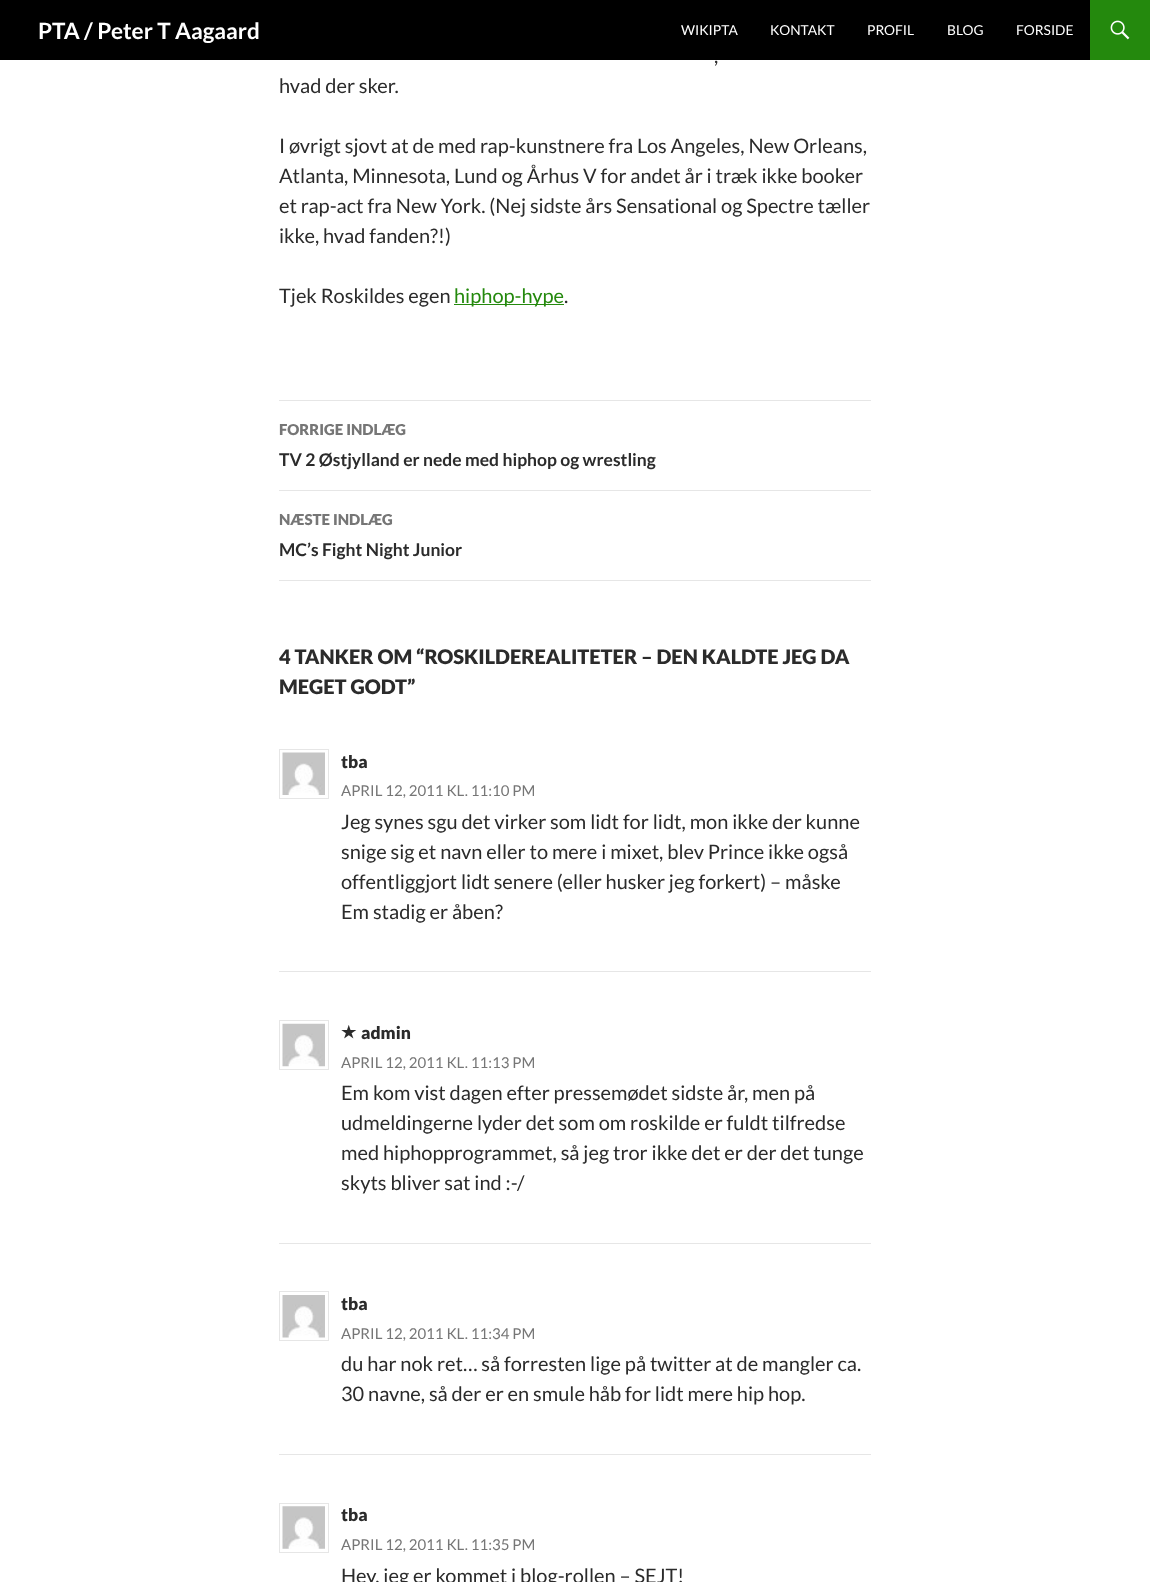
<!DOCTYPE html>
<meta charset="utf-8">
<style>body { margin: 0 } canvas { display: block }</style>
<canvas id="canvas" width="1150" height="1582"></canvas>
<img id="img1" src="img_01.png" hidden>
<img id="img2" src="img_02.png" hidden>
<img id="img3" src="img_03.png" hidden>
<img id="img4" src="img_04.png" hidden>
<img id="img5" src="img_05.png" hidden>
<img id="img6" src="img_06.png" hidden>
<script>
window.onload = function () {
	const canvas = document.getElementById("canvas");
	const ctx = canvas.getContext("2d");
	ctx.miterLimit = 4;
	ctx.fontKerning = "normal";
	function txt(s, x, y) {
		ctx.fillText(s, x, y);
	}
	function fill(x, y, w, h) {
		ctx.fillRect(x, y, w, h);
	}
	function img(id, x, y, w, h) {
		ctx.drawImage(document.getElementById(id), x, y, w, h);
	}

	ctx.fillStyle = "#FFFFFF";
	fill(0, 0, 1150, 1582);
	ctx.fillStyle = "#000000";
	fill(0, 0, 1090, 60);
	ctx.fillStyle = "#24890D";
	fill(1090, 0, 60, 60);
	img("img1", 1110, 20, 20, 20);
	fill(454, 304, 110, 1);
	ctx.fillStyle = "#E6E6E6";
	fill(279, 400, 592, 1);
	fill(279, 490, 592, 1);
	fill(279, 580, 592, 1);
	ctx.strokeStyle = "#E6E6E6";
	ctx.strokeRect(279.5, 749.5, 49, 49);
	img("img2", 282, 752, 43, 43);
	fill(279, 971, 592, 1);
	ctx.strokeRect(279.5, 1020.5, 49, 49);
	img("img3", 282, 1023, 43, 44);
	img("img4", 341, 1025, 16, 14);
	fill(279, 1243, 592, 1);
	ctx.strokeRect(279.5, 1291.5, 49, 49);
	img("img5", 282, 1295, 43, 43);
	fill(279, 1454, 592, 1);
	ctx.strokeRect(279.5, 1503.5, 49, 49);
	img("img6", 282, 1506, 43, 43);
	ctx.font = "bold 22.5px Lato";
	ctx.fillStyle = "#FFFFFF";
	txt("PTA / Peter T Aagaard", 38, 39);
	ctx.font = "13.75px Lato";
	txt("WIKIPTA", 681, 35);
	txt("KONTAKT", 770, 35);
	txt("PROFIL", 867, 35);
	txt("BLOG", 947, 35);
	txt("FORSIDE", 1016, 35);
	ctx.font = "20px Lato";
	ctx.fillStyle = "#2B2B2B";
	txt(",", 714, 63);
	txt("hvad der sker.", 279, 93);
	txt("I øvrigt sjovt at de med rap-kunstnere fra Los Angeles, New Orleans,", 279, 153);
	txt("Atlanta, Minnesota, Lund og Århus V for andet år i træk ikke booker", 279, 183);
	txt("et rap-act fra New York. (Nej sidste års Sensational og Spectre tæller", 279, 213);
	txt("ikke, hvad fanden?!)", 279, 243);
	txt("Tjek Roskildes egen", 279, 303);
	ctx.fillStyle = "#24890D";
	txt("hiphop-hype", 454, 303);
	ctx.fillStyle = "#2B2B2B";
	txt(".", 564, 303);
	ctx.font = "900 15px Lato";
	ctx.fillStyle = "#767676";
	txt("FORRIGE INDLÆG", 279, 435);
	ctx.font = "bold 17.5px Lato";
	ctx.fillStyle = "#2B2B2B";
	txt("TV 2 Østjylland er nede med hiphop og wrestling", 279, 466);
	ctx.font = "900 15px Lato";
	ctx.fillStyle = "#767676";
	txt("NÆSTE INDLÆG", 279, 525);
	ctx.font = "bold 17.5px Lato";
	ctx.fillStyle = "#2B2B2B";
	txt("MC’s Fight Night Junior", 279, 556);
	ctx.font = "900 20px Lato";
	txt("4 TANKER OM “ROSKILDEREALITETER – DEN KALDTE JEG DA", 279, 664);
	txt("MEGET GODT”", 279, 694);
	ctx.font = "900 17.5px Lato";
	txt("tba", 341, 768);
	ctx.font = "15px Lato";
	ctx.fillStyle = "#767676";
	txt("APRIL 12, 2011 KL. 11:10 PM", 341, 796);
	ctx.font = "20px Lato";
	ctx.fillStyle = "#2B2B2B";
	txt("Jeg synes sgu det virker som lidt for lidt, mon ikke der kunne", 341, 829);
	txt("snige sig et navn eller to mere i mixet, blev Prince ikke også", 341, 859);
	txt("offentliggjort lidt senere (eller husker jeg forkert) – måske", 341, 889);
	txt("Em stadig er åben?", 341, 919);
	ctx.font = "900 17.5px Lato";
	txt("admin", 361, 1039);
	ctx.font = "15px Lato";
	ctx.fillStyle = "#767676";
	txt("APRIL 12, 2011 KL. 11:13 PM", 341, 1068);
	ctx.font = "20px Lato";
	ctx.fillStyle = "#2B2B2B";
	txt("Em kom vist dagen efter pressemødet sidste år, men på", 341, 1100);
	txt("udmeldingerne lyder det som om roskilde er fuldt tilfredse", 341, 1130);
	txt("med hiphopprogrammet, så jeg tror ikke det er der det tunge", 341, 1160);
	txt("skyts bliver sat ind :-/", 341, 1190);
	ctx.font = "900 17.5px Lato";
	txt("tba", 341, 1310);
	ctx.font = "15px Lato";
	ctx.fillStyle = "#767676";
	txt("APRIL 12, 2011 KL. 11:34 PM", 341, 1339);
	ctx.font = "20px Lato";
	ctx.fillStyle = "#2B2B2B";
	txt("du har nok ret… så forresten lige på twitter at de mangler ca.", 341, 1371);
	txt("30 navne, så der er en smule håb for lidt mere hip hop.", 341, 1401);
	ctx.font = "900 17.5px Lato";
	txt("tba", 341, 1521);
	ctx.font = "15px Lato";
	ctx.fillStyle = "#767676";
	txt("APRIL 12, 2011 KL. 11:35 PM", 341, 1550);
	ctx.font = "20px Lato";
	ctx.fillStyle = "#2B2B2B";
	txt("Hey, jeg er kommet i blog-rollen – SEJT!", 341, 1583);
};
</script>
